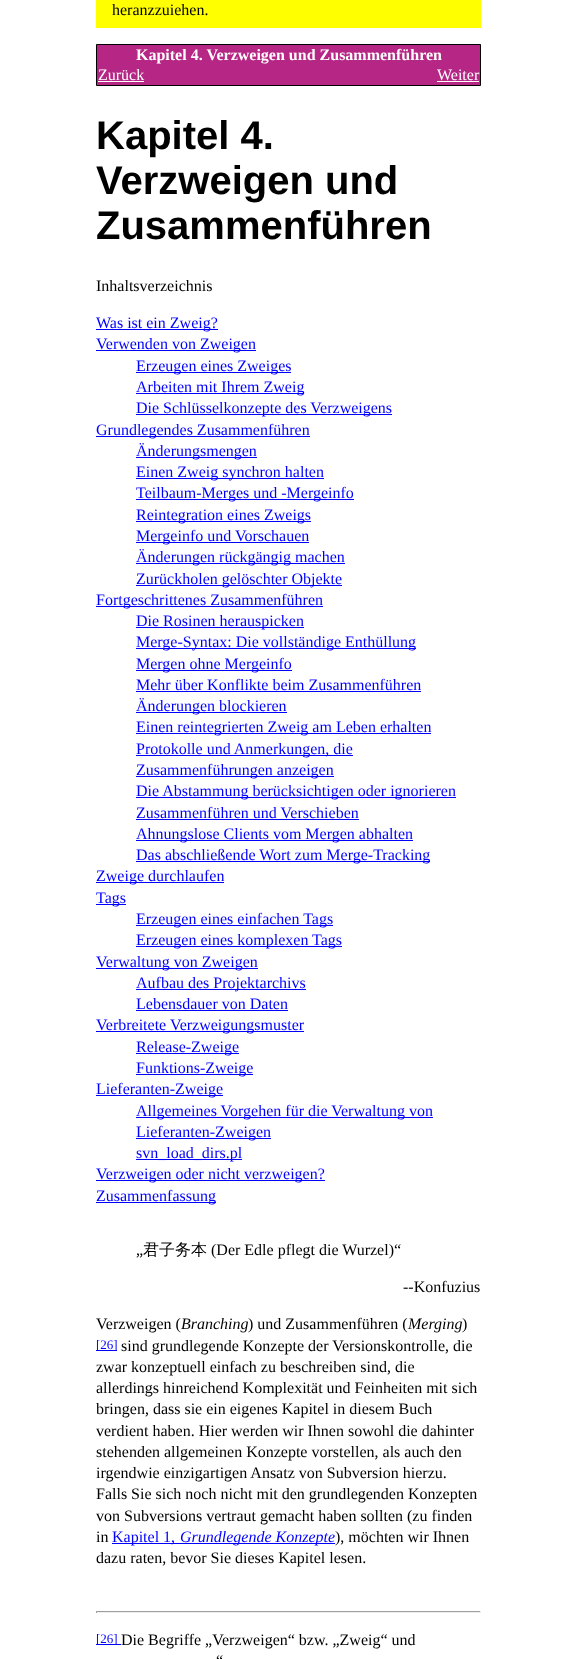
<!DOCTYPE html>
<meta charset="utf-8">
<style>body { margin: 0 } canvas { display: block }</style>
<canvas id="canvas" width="577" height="1659"></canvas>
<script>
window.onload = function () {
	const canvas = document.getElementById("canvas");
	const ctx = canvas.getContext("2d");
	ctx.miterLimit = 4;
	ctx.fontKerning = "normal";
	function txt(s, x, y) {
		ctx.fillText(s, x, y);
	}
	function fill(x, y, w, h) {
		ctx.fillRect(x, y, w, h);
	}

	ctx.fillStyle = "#FFFFFF";
	fill(0, 0, 577, 1659);
	ctx.fillStyle = "#FFFF00";
	fill(96, 0, 385, 28);
	ctx.fillStyle = "#B62685";
	ctx.beginPath();
	ctx.rect(96.5, 44.5, 384, 41);
	ctx.fill();
	ctx.strokeStyle = "#000000";
	ctx.stroke();
	ctx.fillStyle = "#FFFFFF";
	fill(98, 81, 46, 1);
	fill(437, 81, 42, 1);
	ctx.fillStyle = "#0000FF";
	fill(96, 329, 122, 1);
	fill(96, 350, 160, 1);
	fill(136, 372, 155, 1);
	fill(136, 393, 168, 1);
	fill(136, 414, 256, 1);
	fill(96, 436, 214, 1);
	fill(136, 457, 121, 1);
	fill(136, 478, 188, 1);
	fill(136, 499, 218, 1);
	fill(136, 521, 175, 1);
	fill(136, 542, 173, 1);
	fill(136, 563, 209, 1);
	fill(136, 585, 206, 1);
	fill(96, 606, 227, 1);
	fill(136, 627, 168, 1);
	fill(136, 648, 280, 1);
	fill(136, 670, 156, 1);
	fill(136, 691, 285, 1);
	fill(136, 712, 151, 1);
	fill(136, 733, 295, 1);
	fill(136, 755, 217, 1);
	fill(136, 776, 198, 1);
	fill(136, 797, 320, 1);
	fill(136, 819, 223, 1);
	fill(136, 840, 277, 1);
	fill(136, 861, 294, 1);
	fill(96, 882, 128, 1);
	fill(96, 904, 30, 1);
	fill(136, 925, 197, 1);
	fill(136, 946, 206, 1);
	fill(96, 968, 162, 1);
	fill(136, 989, 170, 1);
	fill(136, 1010, 152, 1);
	fill(96, 1031, 208, 1);
	fill(136, 1053, 103, 1);
	fill(136, 1074, 117, 1);
	fill(96, 1095, 127, 1);
	fill(136, 1117, 297, 1);
	fill(136, 1138, 135, 1);
	fill(136, 1159, 106, 1);
	fill(96, 1180, 229, 1);
	fill(96, 1202, 120, 1);
	fill(96, 1350, 21, 1);
	fill(112, 1543, 223, 1);
	ctx.fillStyle = "#9F9F9F";
	fill(96, 1611, 385, 1);
	ctx.fillStyle = "#EEEEEE";
	fill(480, 1611, 1, 2);
	fill(96, 1612, 385, 1);
	ctx.fillStyle = "#9F9F9F";
	fill(96, 1611, 1, 2);
	ctx.fillStyle = "#0000FF";
	fill(96, 1644, 25, 1);
	ctx.font = "16px Liberation Serif";
	ctx.fillStyle = "#000000";
	txt("heranzzuiehen.", 112, 15);
	ctx.font = "bold 16px Liberation Serif";
	ctx.fillStyle = "#FFFFFF";
	txt("Kapitel 4. Verzweigen und Zusammenführen", 136, 60);
	ctx.font = "16px Liberation Serif";
	txt("Zurück", 98, 80);
	txt("Weiter", 437, 80);
	ctx.font = "bold 40px Liberation Sans";
	ctx.fillStyle = "#000000";
	txt("Kapitel 4.", 96, 149);
	txt("Verzweigen und", 96, 194);
	txt("Zusammenführen", 96, 239);
	ctx.font = "16px Liberation Serif";
	txt("Inhaltsverzeichnis", 96, 291);
	ctx.fillStyle = "#0000FF";
	txt("Was ist ein Zweig?", 96, 328);
	txt("Verwenden von Zweigen", 96, 349);
	txt("Erzeugen eines Zweiges", 136, 371);
	txt("Arbeiten mit Ihrem Zweig", 136, 392);
	txt("Die Schlüsselkonzepte des Verzweigens", 136, 413);
	txt("Grundlegendes Zusammenführen", 96, 435);
	txt("Änderungsmengen", 136, 456);
	txt("Einen Zweig synchron halten", 136, 477);
	txt("Teilbaum-Merges und -Mergeinfo", 136, 498);
	txt("Reintegration eines Zweigs", 136, 520);
	txt("Mergeinfo und Vorschauen", 136, 541);
	txt("Änderungen rückgängig machen", 136, 562);
	txt("Zurückholen gelöschter Objekte", 136, 584);
	txt("Fortgeschrittenes Zusammenführen", 96, 605);
	txt("Die Rosinen herauspicken", 136, 626);
	txt("Merge-Syntax: Die vollständige Enthüllung", 136, 647);
	txt("Mergen ohne Mergeinfo", 136, 669);
	txt("Mehr über Konflikte beim Zusammenführen", 136, 690);
	txt("Änderungen blockieren", 136, 711);
	txt("Einen reintegrierten Zweig am Leben erhalten", 136, 732);
	txt("Protokolle und Anmerkungen, die", 136, 754);
	txt("Zusammenführungen anzeigen", 136, 775);
	txt("Die Abstammung berücksichtigen oder ignorieren", 136, 796);
	txt("Zusammenführen und Verschieben", 136, 818);
	txt("Ahnungslose Clients vom Mergen abhalten", 136, 839);
	txt("Das abschließende Wort zum Merge-Tracking", 136, 860);
	txt("Zweige durchlaufen", 96, 881);
	txt("Tags", 96, 903);
	txt("Erzeugen eines einfachen Tags", 136, 924);
	txt("Erzeugen eines komplexen Tags", 136, 945);
	txt("Verwaltung von Zweigen", 96, 967);
	txt("Aufbau des Projektarchivs", 136, 988);
	txt("Lebensdauer von Daten", 136, 1009);
	txt("Verbreitete Verzweigungsmuster", 96, 1030);
	txt("Release-Zweige", 136, 1052);
	txt("Funktions-Zweige", 136, 1073);
	txt("Lieferanten-Zweige", 96, 1094);
	txt("Allgemeines Vorgehen für die Verwaltung von", 136, 1116);
	txt("Lieferanten-Zweigen", 136, 1137);
	txt("svn_load_dirs.pl", 136, 1158);
	txt("Verzweigen oder nicht verzweigen?", 96, 1179);
	txt("Zusammenfassung", 96, 1201);
	ctx.fillStyle = "#000000";
	txt("„", 136, 1255);
	ctx.font = "500 16px WenQuanYi Zen Hei";
	txt("君子务本", 143, 1255);
	ctx.font = "16px Liberation Serif";
	txt("(Der Edle pflegt die Wurzel)“", 211, 1255);
	txt("--Konfuzius", 403, 1292);
	txt("Verzweigen (", 96, 1329);
	ctx.font = "italic 16px Liberation Serif";
	txt("Branching", 181, 1329);
	ctx.font = "16px Liberation Serif";
	txt(") und Zusammenführen (", 248, 1329);
	ctx.font = "italic 16px Liberation Serif";
	txt("Merging", 408, 1329);
	ctx.font = "16px Liberation Serif";
	txt(")", 462, 1329);
	ctx.font = "13px Liberation Serif";
	ctx.fillStyle = "#0000FF";
	txt("[26]", 96, 1349);
	ctx.font = "16px Liberation Serif";
	ctx.fillStyle = "#000000";
	txt("sind grundlegende Konzepte der Versionskontrolle, die", 121, 1351);
	txt("zwar konzeptuell einfach zu beschreiben sind, die", 96, 1372);
	txt("allerdings hinreichend Komplexität und Feinheiten mit sich", 96, 1393);
	txt("bringen, dass sie ein eigenes Kapitel in diesem Buch", 96, 1414);
	txt("verdient haben. Hier werden wir Ihnen sowohl die dahinter", 96, 1436);
	txt("stehenden allgemeinen Konzepte vorstellen, als auch den", 96, 1457);
	txt("irgendwie einzigartigen Ansatz von Subversion hierzu.", 96, 1478);
	txt("Falls Sie sich noch nicht mit den grundlegenden Konzepten", 96, 1499);
	txt("von Subversions vertraut gemacht haben sollten (zu finden", 96, 1521);
	txt("in", 96, 1542);
	ctx.fillStyle = "#0000FF";
	txt("Kapitel 1,", 112, 1542);
	ctx.font = "italic 16px Liberation Serif";
	txt("Grundlegende Konzepte", 180, 1542);
	ctx.font = "16px Liberation Serif";
	ctx.fillStyle = "#000000";
	txt("), möchten wir Ihnen", 335, 1542);
	txt("dazu raten, bevor Sie dieses Kapitel lesen.", 96, 1563);
	ctx.font = "13px Liberation Serif";
	ctx.fillStyle = "#0000FF";
	txt("[26]", 96, 1643);
	ctx.font = "16px Liberation Serif";
	ctx.fillStyle = "#000000";
	txt("Die Begriffe „Verzweigen“ bzw. „Zweig“ und", 121, 1645);
	txt("“", 216, 1666);
};
</script>
